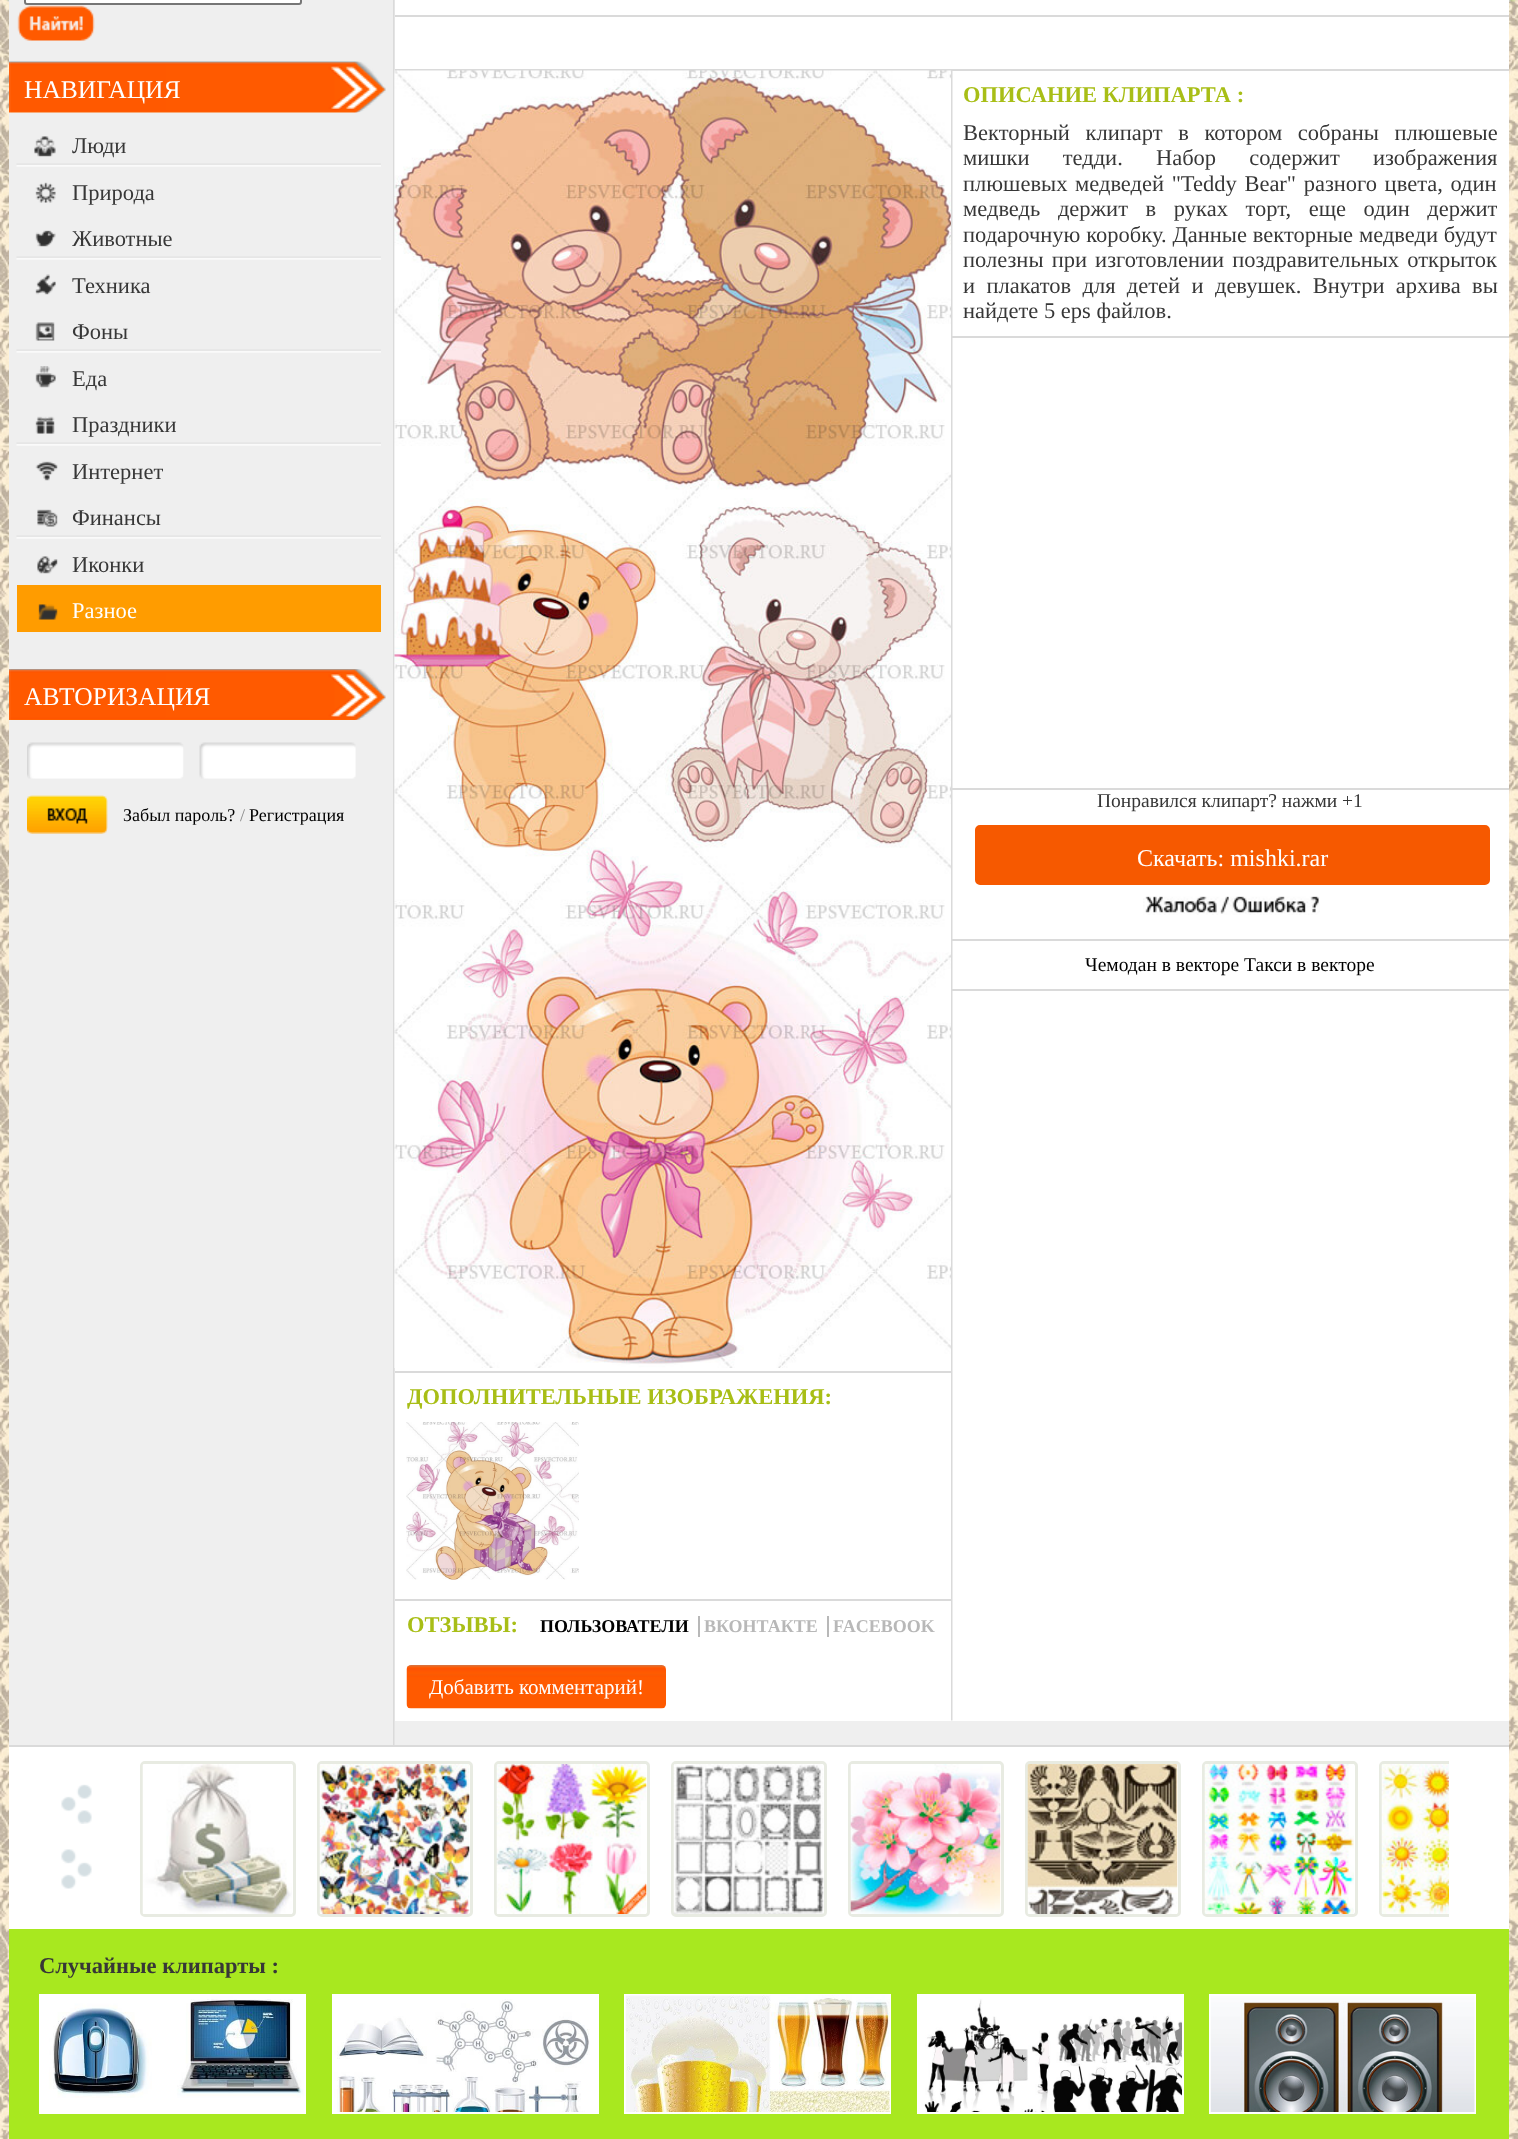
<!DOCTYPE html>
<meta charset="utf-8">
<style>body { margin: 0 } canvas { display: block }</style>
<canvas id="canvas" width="1518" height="2139"></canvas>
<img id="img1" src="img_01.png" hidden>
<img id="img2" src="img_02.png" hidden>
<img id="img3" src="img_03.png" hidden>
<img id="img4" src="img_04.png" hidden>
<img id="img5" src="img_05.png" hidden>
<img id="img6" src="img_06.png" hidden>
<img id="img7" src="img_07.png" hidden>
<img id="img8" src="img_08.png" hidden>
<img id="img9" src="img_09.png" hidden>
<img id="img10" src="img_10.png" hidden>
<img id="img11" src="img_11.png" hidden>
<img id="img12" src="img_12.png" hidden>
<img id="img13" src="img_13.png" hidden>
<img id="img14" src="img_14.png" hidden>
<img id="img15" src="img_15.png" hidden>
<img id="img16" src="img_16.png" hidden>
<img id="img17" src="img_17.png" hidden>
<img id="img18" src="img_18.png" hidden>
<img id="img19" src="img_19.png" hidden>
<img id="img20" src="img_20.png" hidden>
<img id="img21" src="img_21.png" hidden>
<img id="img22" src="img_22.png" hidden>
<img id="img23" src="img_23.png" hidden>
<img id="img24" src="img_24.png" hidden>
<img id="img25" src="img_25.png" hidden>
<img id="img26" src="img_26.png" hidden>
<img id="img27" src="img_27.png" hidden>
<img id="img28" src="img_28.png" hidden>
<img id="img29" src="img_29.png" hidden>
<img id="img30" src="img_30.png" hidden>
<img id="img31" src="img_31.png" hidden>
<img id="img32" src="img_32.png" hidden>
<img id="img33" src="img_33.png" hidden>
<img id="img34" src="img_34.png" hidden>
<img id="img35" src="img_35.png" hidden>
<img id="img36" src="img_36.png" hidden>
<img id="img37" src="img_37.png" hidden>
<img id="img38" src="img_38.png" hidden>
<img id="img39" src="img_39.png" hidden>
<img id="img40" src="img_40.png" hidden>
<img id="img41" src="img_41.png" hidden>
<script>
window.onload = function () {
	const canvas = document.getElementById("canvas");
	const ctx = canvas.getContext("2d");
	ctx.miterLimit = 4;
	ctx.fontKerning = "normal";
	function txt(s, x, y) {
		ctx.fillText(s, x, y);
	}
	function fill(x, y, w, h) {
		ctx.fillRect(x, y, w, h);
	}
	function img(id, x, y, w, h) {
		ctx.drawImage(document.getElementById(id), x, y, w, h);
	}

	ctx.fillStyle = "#FFFFFF";
	fill(0, 0, 1518, 2139);
	img("img1", 0, 0, 1518, 2139);
	img("img2", 4, 0, 1514, 2);
	ctx.fillStyle = "#EFEFEF";
	fill(9, 0, 1500, 1745);
	img("img3", 393, 0, 2, 1745);
	ctx.fillStyle = "#FFFFFF";
	ctx.beginPath();
	ctx.roundRect(25, -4, 276, 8, 2);
	ctx.fill();
	ctx.strokeStyle = "#767676";
	ctx.lineWidth = 2;
	ctx.stroke();
	img("img4", 17, 5, 78, 36);
	img("img5", 9, 61, 377, 52);
	img("img6", 16, 163, 365, 4);
	img("img7", 34, 136, 22, 21);
	img("img8", 35, 182, 21, 21);
	img("img6", 16, 256, 365, 4);
	img("img9", 35, 230, 21, 17);
	img("img10", 35, 274, 21, 21);
	img("img6", 16, 349, 365, 4);
	img("img11", 35, 322, 20, 19);
	img("img12", 35, 366, 21, 22);
	img("img6", 16, 442, 365, 4);
	img("img13", 35, 416, 20, 18);
	img("img14", 35, 461, 23, 20);
	img("img6", 16, 535, 365, 4);
	img("img15", 37, 509, 21, 18);
	img("img16", 37, 556, 21, 18);
	ctx.fillStyle = "#FF9C00";
	fill(17, 585, 364, 47);
	img("img17", 38, 604, 20, 16);
	img("img18", 9, 669, 377, 51);
	img("img19", 27, 742, 157, 37);
	img("img20", 199, 742, 157, 37);
	img("img21", 27, 795, 81, 39);
	ctx.fillStyle = "#FFFFFF";
	fill(395, 71, 1114, 1650);
	img("img22", 951, 71, 2, 1650);
	fill(395, 0, 1114, 15);
	ctx.fillStyle = "#DADADA";
	fill(395, 15, 1114, 2);
	ctx.fillStyle = "#FFFFFF";
	fill(395, 17, 1114, 52);
	ctx.fillStyle = "#DADADA";
	fill(395, 69, 1114, 2);
	fill(951, 336, 558, 2);
	fill(951, 788, 558, 2);
	fill(951, 939, 558, 2);
	ctx.fillStyle = "#F65900";
	ctx.beginPath();
	ctx.roundRect(976, 826, 513, 58, 4);
	ctx.fill();
	ctx.strokeStyle = "#F65900";
	ctx.stroke();
	img("img23", 1143, 896, 177, 19);
	ctx.fillStyle = "#DADADA";
	fill(951, 989, 558, 2);
	fill(395, 1371, 556, 2);
	img("img24", 394, 70, 557, 1298);
	fill(395, 1599, 556, 2);
	img("img25", 406, 1422, 173, 158);
	ctx.fillStyle = "#B8B8B8";
	fill(698, 1616, 2, 21);
	fill(827, 1616, 2, 21);
	img("img26", 406, 1665, 260, 44);
	ctx.fillStyle = "#FFFFFF";
	fill(9, 1747, 1500, 182);
	ctx.fillStyle = "#DADADA";
	fill(9, 1745, 1500, 2);
	img("img27", 61, 1784, 31, 40);
	img("img28", 61, 1849, 31, 40);
	ctx.beginPath();
	ctx.roundRect(141.5, 1762.5, 153, 153, 3.5);
	ctx.strokeStyle = "#E8EBE2";
	ctx.lineWidth = 3;
	ctx.stroke();
	img("img29", 142, 1764, 150, 150);
	ctx.beginPath();
	ctx.roundRect(318.5, 1762.5, 153, 153, 3.5);
	ctx.stroke();
	img("img30", 319, 1764, 151, 150);
	ctx.beginPath();
	ctx.roundRect(495.5, 1762.5, 153, 153, 3.5);
	ctx.stroke();
	img("img31", 496, 1764, 151, 150);
	ctx.beginPath();
	ctx.roundRect(672.5, 1762.5, 153, 153, 3.5);
	ctx.stroke();
	img("img32", 673, 1764, 151, 150);
	ctx.beginPath();
	ctx.roundRect(849.5, 1762.5, 153, 153, 3.5);
	ctx.stroke();
	img("img33", 850, 1764, 151, 150);
	ctx.beginPath();
	ctx.roundRect(1026.5, 1762.5, 153, 153, 3.5);
	ctx.stroke();
	img("img34", 1027, 1764, 151, 150);
	ctx.beginPath();
	ctx.roundRect(1203.5, 1762.5, 153, 153, 3.5);
	ctx.stroke();
	img("img35", 1204, 1764, 150, 150);
	ctx.save();
	ctx.beginPath();
	ctx.rect(1368, 1761, 81, 162);
	ctx.clip();
	ctx.beginPath();
	ctx.roundRect(1380.5, 1762.5, 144, 153, 3.5);
	ctx.stroke();
	ctx.restore();
	img("img36", 1381, 1764, 68, 150);
	ctx.fillStyle = "#A8E81F";
	fill(9, 1929, 1500, 210);
	ctx.strokeStyle = "#FFFFFF";
	ctx.lineWidth = 2;
	ctx.strokeRect(40, 1995, 265, 118);
	img("img37", 41, 1996, 263, 116);
	ctx.strokeRect(333, 1995, 265, 118);
	img("img38", 334, 1996, 263, 116);
	ctx.strokeRect(625, 1995, 265, 118);
	img("img39", 625, 1995, 265, 117);
	ctx.strokeRect(918, 1995, 265, 118);
	img("img40", 919, 1996, 263, 116);
	ctx.strokeRect(1210, 1995, 265, 118);
	img("img41", 1210, 1996, 265, 116);
	ctx.font = "25.5px Liberation Serif";
	ctx.fillStyle = "#FFFFFF";
	txt("НАВИГАЦИЯ", 24, 98);
	ctx.font = "22.5px Liberation Serif";
	ctx.fillStyle = "#373737";
	txt("Люди", 72, 153);
	txt("Природа", 72, 200);
	txt("Животные", 72, 246);
	txt("Техника", 72, 293);
	txt("Фоны", 72, 339);
	txt("Еда", 72, 386);
	txt("Праздники", 72, 432);
	txt("Интернет", 72, 479);
	txt("Финансы", 72, 525);
	txt("Иконки", 72, 572);
	ctx.fillStyle = "#FFFFFF";
	txt("Разное", 72, 618);
	ctx.font = "25.5px Liberation Serif";
	txt("АВТОРИЗАЦИЯ", 24, 705);
	ctx.font = "18px Liberation Serif";
	ctx.fillStyle = "#000000";
	txt("Забыл пароль?", 123, 821);
	ctx.fillStyle = "#898989";
	txt("/", 240, 821);
	ctx.fillStyle = "#000000";
	txt("Регистрация", 249, 821);
	ctx.font = "bold 22.5px Liberation Serif";
	ctx.fillStyle = "#A8BE16";
	txt("ОПИСАНИЕ КЛИПАРТА :", 963, 102);
	ctx.wordSpacing = "10px";
	ctx.font = "22.5px Liberation Serif";
	ctx.fillStyle = "#373737";
	txt("Векторный клипарт в котором собраны плюшевые", 963, 140);
	ctx.wordSpacing = "27.5px";
	txt("мишки тедди. Набор содержит изображения", 963, 165);
	ctx.wordSpacing = "2px";
	txt("плюшевых медведей \"Teddy Bear\" разного цвета, один", 963, 191);
	ctx.wordSpacing = "12px";
	txt("медведь держит в руках торт, еще один держит", 963, 216);
	ctx.wordSpacing = "0.25px";
	txt("подарочную коробку. Данные векторные медведи будут", 963, 242);
	ctx.wordSpacing = "2.5px";
	txt("полезны при изготовлении поздравительных открыток", 963, 267);
	ctx.wordSpacing = "5.75px";
	txt("и плакатов для детей и девушек. Внутри архива вы", 963, 293);
	ctx.wordSpacing = "0px";
	txt("найдете 5 eps файлов.", 963, 318);
	ctx.font = "19.5px Liberation Serif";
	txt("Понравился клипарт? нажми +1", 1097, 807);
	ctx.font = "24px Liberation Serif";
	ctx.fillStyle = "#FFFFFF";
	txt("Скачать: mishki.rar", 1137, 866);
	ctx.font = "19.5px Liberation Serif";
	ctx.fillStyle = "#000000";
	txt("Чемодан в векторе Такси в векторе", 1085, 971);
	ctx.font = "bold 22.5px Liberation Serif";
	ctx.fillStyle = "#A8BE16";
	txt("ДОПОЛНИТЕЛЬНЫЕ ИЗОБРАЖЕНИЯ:", 407, 1404);
	txt("ОТЗЫВЫ:", 407, 1632);
	ctx.font = "bold 18px Liberation Serif";
	ctx.fillStyle = "#000000";
	txt("ПОЛЬЗОВАТЕЛИ", 540, 1632);
	ctx.fillStyle = "#B8B8B8";
	txt("ВКОНТАКТЕ", 704, 1632);
	txt("FACEBOOK", 833, 1632);
	ctx.font = "21px Liberation Serif";
	ctx.fillStyle = "#FFFFFF";
	txt("Добавить комментарий!", 429, 1694);
	ctx.font = "bold 22.5px Liberation Serif";
	ctx.fillStyle = "#373737";
	txt("Случайные клипарты :", 39, 1973);
};
</script>
